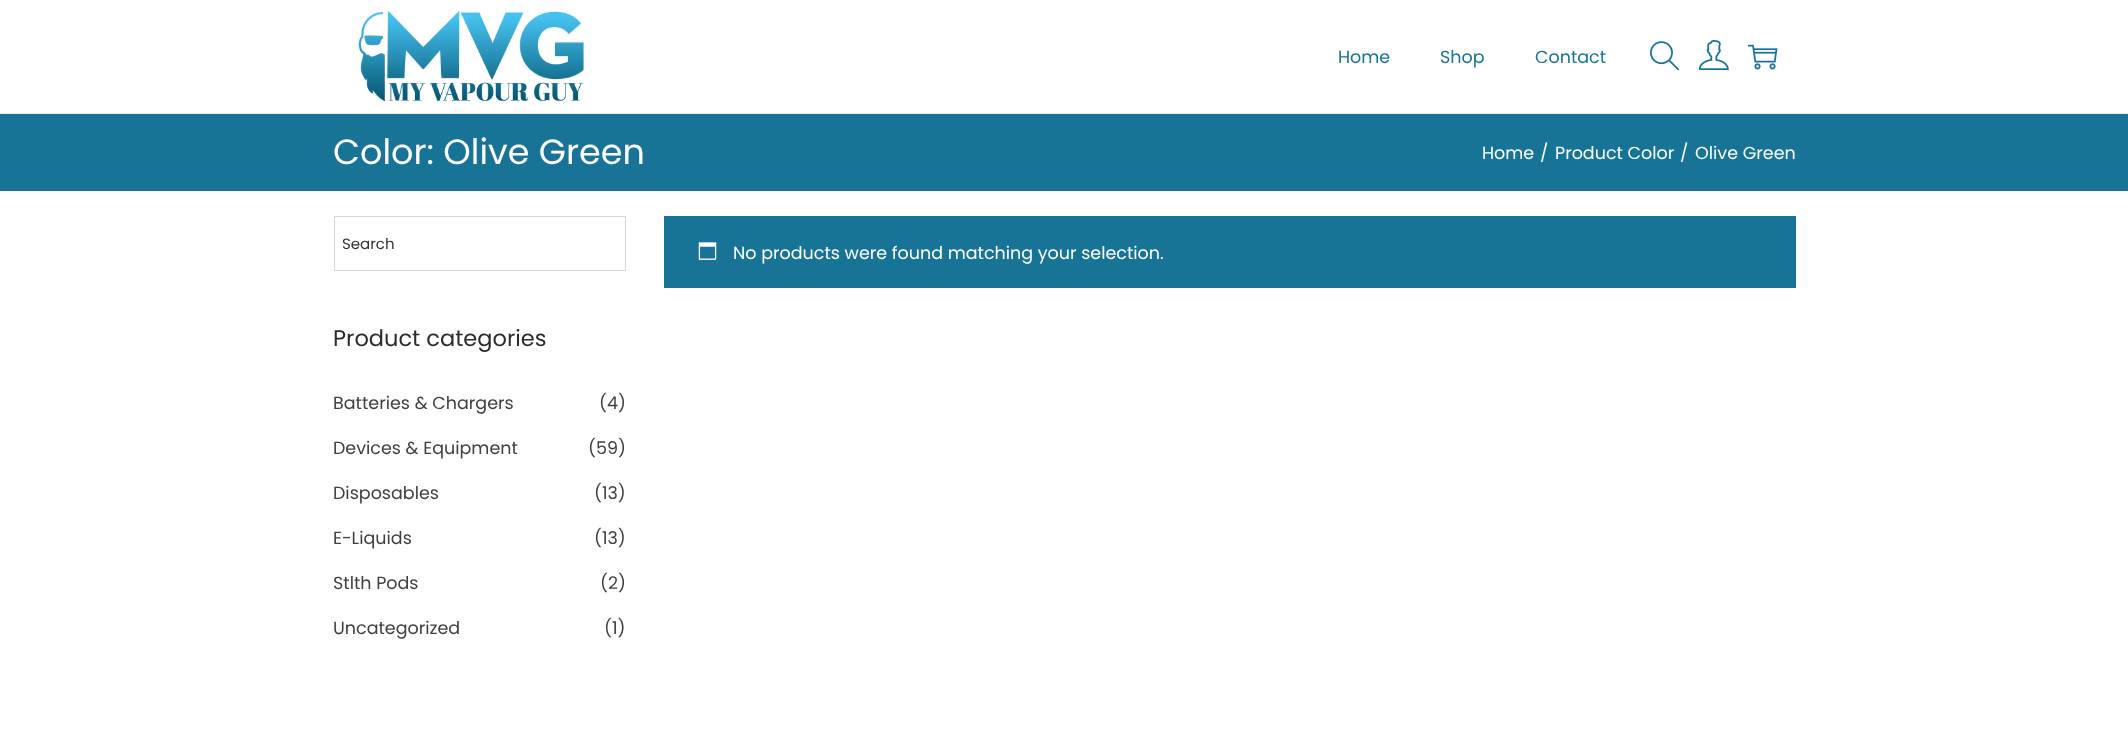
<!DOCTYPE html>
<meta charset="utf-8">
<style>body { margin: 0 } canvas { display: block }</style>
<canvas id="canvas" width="2128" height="732"></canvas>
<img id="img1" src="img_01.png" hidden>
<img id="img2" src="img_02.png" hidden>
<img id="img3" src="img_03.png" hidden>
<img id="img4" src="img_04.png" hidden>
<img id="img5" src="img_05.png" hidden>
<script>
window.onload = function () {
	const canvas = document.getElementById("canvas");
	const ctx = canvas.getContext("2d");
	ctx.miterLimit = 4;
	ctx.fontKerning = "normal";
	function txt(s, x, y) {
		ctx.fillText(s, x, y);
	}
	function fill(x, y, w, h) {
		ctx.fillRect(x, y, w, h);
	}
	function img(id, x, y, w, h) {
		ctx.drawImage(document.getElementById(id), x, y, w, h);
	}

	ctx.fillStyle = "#FFFFFF";
	fill(0, 0, 2128, 732);
	ctx.fillStyle = "#EAEAEA";
	fill(0, 113, 2128, 1);
	img("img1", 358, 11, 226, 91);
	img("img2", 1650, 41, 30, 30);
	img("img3", 1699, 40, 30, 30);
	img("img4", 1748, 44, 30, 26);
	ctx.fillStyle = "#177496";
	fill(0, 114, 2128, 77);
	ctx.strokeStyle = "#D8D8D8";
	ctx.strokeRect(334.5, 216.5, 291, 54);
	fill(664, 216, 1132, 72);
	img("img5", 698, 242, 19, 18);
	ctx.font = "17.5px Poppins";
	txt("Home", 1338, 63);
	txt("Shop", 1440, 63);
	txt("Contact", 1535, 63);
	ctx.font = "35px Poppins";
	ctx.fillStyle = "#FFFFFF";
	txt("Color: Olive Green", 333, 164);
	ctx.font = "17.5px Poppins";
	txt("Home", 1482, 159);
	txt("/", 1540, 159);
	txt("Product Color", 1555, 159);
	txt("/", 1680, 159);
	txt("Olive Green", 1695, 159);
	ctx.save();
	ctx.beginPath();
	ctx.rect(343, 233, 232, 22);
	ctx.clip();
	ctx.font = "15px Poppins";
	ctx.fillStyle = "#313131";
	txt("Search", 342, 249);
	ctx.restore();
	ctx.font = "22.5px Poppins";
	ctx.fillStyle = "#2B2B2B";
	txt("Product categories", 333, 346);
	ctx.font = "17.5px Poppins";
	ctx.fillStyle = "#404040";
	txt("Batteries & Chargers", 333, 409);
	txt("(4)", 599, 409);
	txt("Devices & Equipment", 333, 454);
	txt("(59)", 588, 454);
	txt("Disposables", 333, 499);
	txt("(13)", 594, 499);
	txt("E-Liquids", 333, 544);
	txt("(13)", 594, 544);
	txt("Stlth Pods", 333, 589);
	txt("(2)", 600, 589);
	txt("Uncategorized", 333, 634);
	txt("(1)", 604, 634);
	ctx.fillStyle = "#FFFFFF";
	txt("No products were found matching your selection.", 733, 259);
};
</script>
